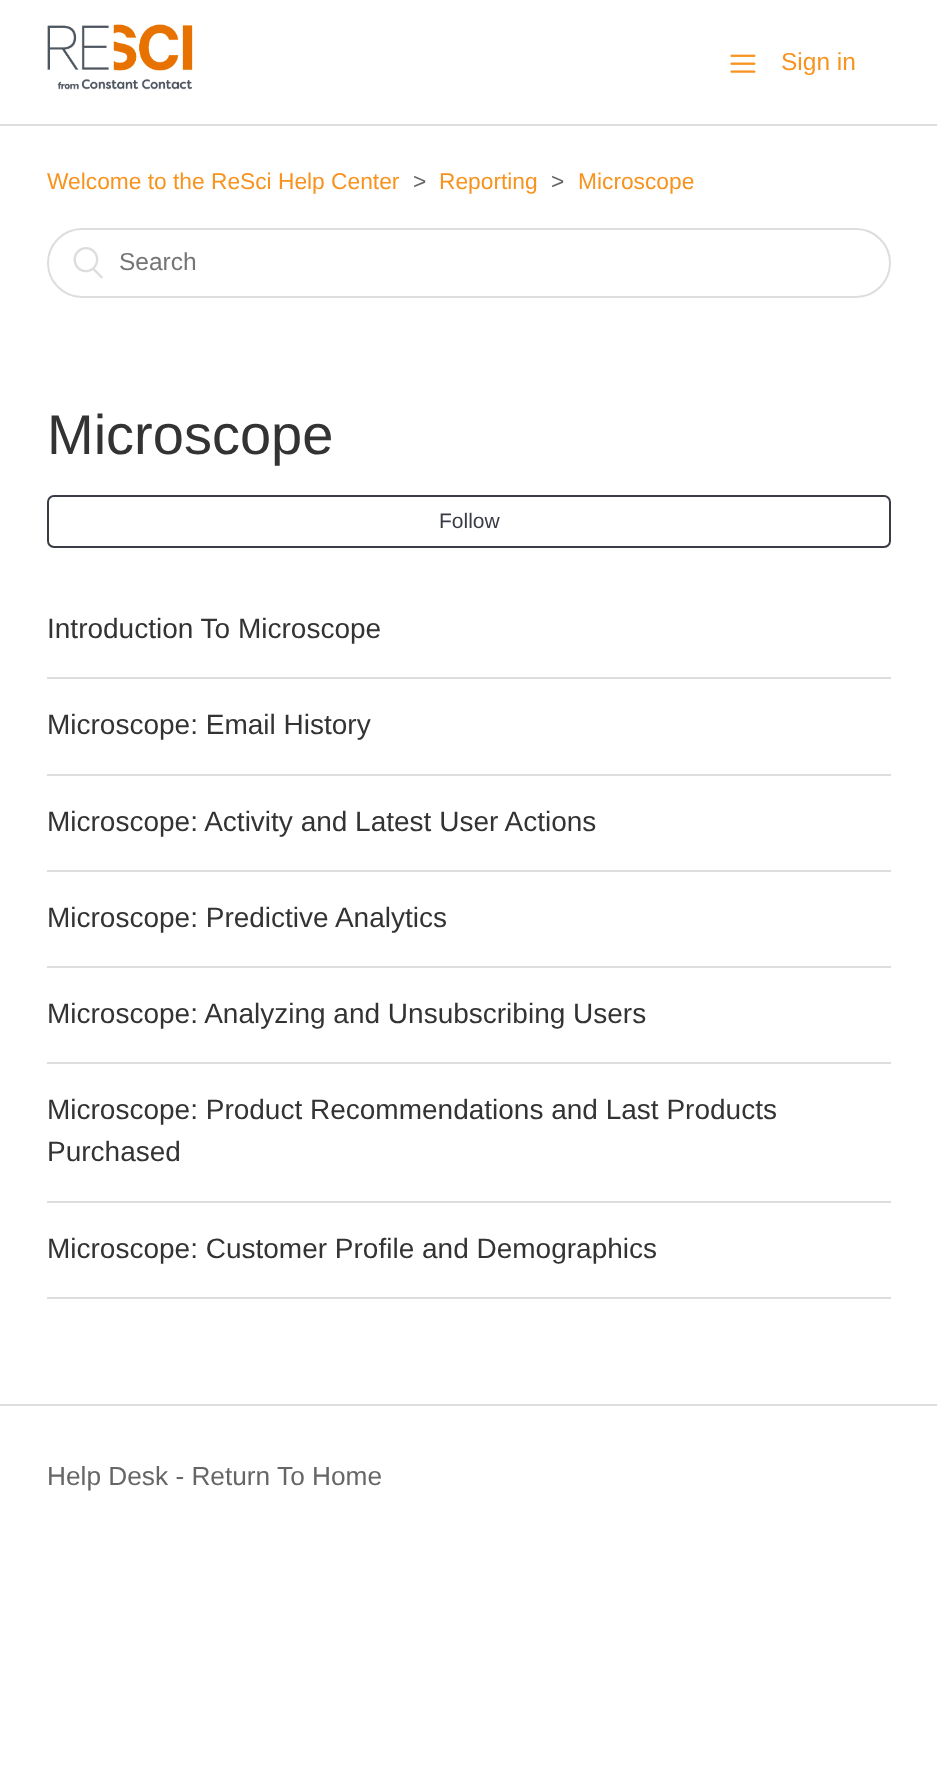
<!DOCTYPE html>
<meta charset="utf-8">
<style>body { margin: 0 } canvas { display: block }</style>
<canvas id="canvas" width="937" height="1773"></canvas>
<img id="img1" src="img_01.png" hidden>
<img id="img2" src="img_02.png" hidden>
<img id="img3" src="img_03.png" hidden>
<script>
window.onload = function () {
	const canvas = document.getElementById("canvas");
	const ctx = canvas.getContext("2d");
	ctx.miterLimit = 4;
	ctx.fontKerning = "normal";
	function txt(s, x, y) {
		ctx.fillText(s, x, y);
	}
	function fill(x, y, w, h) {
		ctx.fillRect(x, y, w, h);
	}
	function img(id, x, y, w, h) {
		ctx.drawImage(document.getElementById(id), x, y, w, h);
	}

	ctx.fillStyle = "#FFFFFF";
	fill(0, 0, 937, 1773);
	img("img1", 47, 24, 146, 66);
	img("img2", 730, 54, 26, 19);
	ctx.fillStyle = "#DDDDDD";
	fill(0, 124, 937, 2);
	ctx.beginPath();
	ctx.roundRect(48, 229, 842, 68, 34);
	ctx.strokeStyle = "#DDDDDD";
	ctx.lineWidth = 2;
	ctx.stroke();
	img("img3", 73, 247, 30, 32);
	ctx.beginPath();
	ctx.roundRect(48, 496, 842, 51, 6);
	ctx.strokeStyle = "#393C45";
	ctx.stroke();
	fill(47, 677, 844, 2);
	fill(47, 774, 844, 2);
	fill(47, 870, 844, 2);
	fill(47, 966, 844, 2);
	fill(47, 1062, 844, 2);
	fill(47, 1201, 844, 2);
	fill(47, 1297, 844, 2);
	fill(0, 1404, 937, 2);
	ctx.font = "24.5px Liberation Sans";
	ctx.fillStyle = "#F7931E";
	txt("Sign in", 781, 70);
	ctx.font = "22.75px Liberation Sans";
	txt("Welcome to the ReSci Help Center", 47, 189);
	ctx.fillStyle = "#666666";
	txt(">", 413, 189);
	ctx.fillStyle = "#F7931E";
	txt("Reporting", 439, 189);
	ctx.fillStyle = "#666666";
	txt(">", 551, 189);
	ctx.fillStyle = "#F7931E";
	txt("Microscope", 578, 189);
	ctx.font = "24.5px Liberation Sans";
	ctx.fillStyle = "#757575";
	txt("Search", 119, 270);
	ctx.font = "56px Liberation Sans";
	ctx.fillStyle = "#333333";
	txt("Microscope", 47, 454);
	ctx.font = "21px Liberation Sans";
	ctx.fillStyle = "#393C45";
	txt("Follow", 439, 528);
	ctx.font = "28px Liberation Sans";
	ctx.fillStyle = "#333333";
	txt("Introduction To Microscope", 47, 638);
	txt("Microscope: Email History", 47, 734);
	txt("Microscope: Activity and Latest User Actions", 47, 831);
	txt("Microscope: Predictive Analytics", 47, 927);
	txt("Microscope: Analyzing and Unsubscribing Users", 47, 1023);
	txt("Microscope: Product Recommendations and Last Products", 47, 1119);
	txt("Purchased", 47, 1161);
	txt("Microscope: Customer Profile and Demographics", 47, 1258);
	ctx.font = "26.25px Liberation Sans";
	ctx.fillStyle = "#666666";
	txt("Help Desk - Return To Home", 47, 1485);
};
</script>
